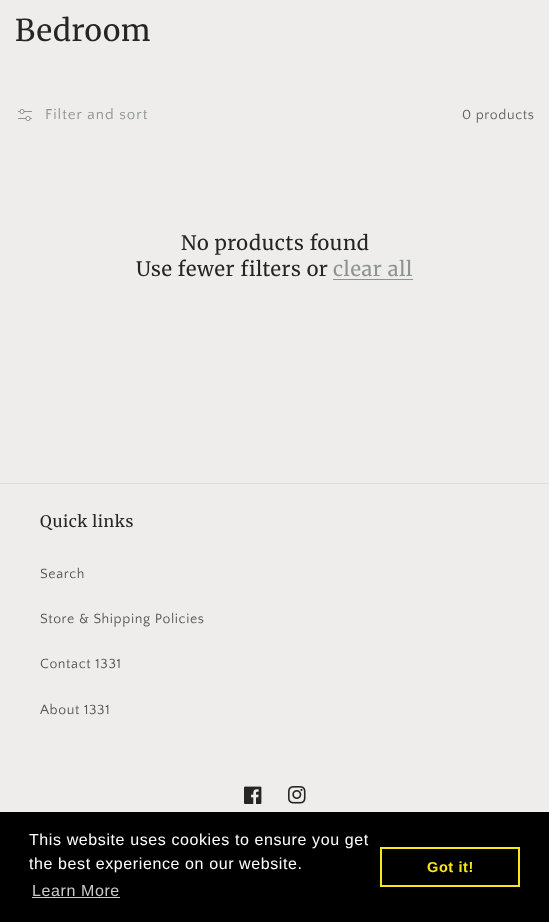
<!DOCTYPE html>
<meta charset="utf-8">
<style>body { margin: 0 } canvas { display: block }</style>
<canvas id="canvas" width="549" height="922"></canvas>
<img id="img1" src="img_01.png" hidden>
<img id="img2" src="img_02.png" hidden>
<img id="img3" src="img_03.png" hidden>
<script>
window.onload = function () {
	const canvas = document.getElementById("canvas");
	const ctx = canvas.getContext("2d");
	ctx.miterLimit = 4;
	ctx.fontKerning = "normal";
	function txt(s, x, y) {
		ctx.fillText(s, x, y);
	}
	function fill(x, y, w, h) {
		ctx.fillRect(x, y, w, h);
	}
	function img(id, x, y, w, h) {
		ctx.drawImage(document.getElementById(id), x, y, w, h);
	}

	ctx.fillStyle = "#EFECEC";
	fill(0, 0, 549, 922);
	img("img1", 18, 109, 14, 12);
	ctx.fillStyle = "#8C9392";
	fill(333, 279, 80, 1);
	ctx.fillStyle = "#DFDCDC";
	fill(0, 483, 549, 1);
	img("img2", 244, 786, 18, 18);
	img("img3", 288, 786, 18, 18);
	ctx.fillStyle = "#000000";
	fill(0, 812, 549, 110);
	ctx.fillStyle = "#CCCCCC";
	fill(32, 897, 88, 1);
	ctx.strokeStyle = "#F8E71C";
	ctx.lineWidth = 2;
	ctx.strokeRect(381, 848, 138, 38);
	ctx.letterSpacing = "0.6px";
	ctx.font = "30px Merriweather";
	ctx.fillStyle = "#252525";
	txt("Bedroom", 15, 41);
	ctx.letterSpacing = "1px";
	ctx.font = "15px Quattrocento Sans";
	ctx.fillStyle = "#8C9392";
	txt("Filter and sort", 45, 119);
	ctx.letterSpacing = "0.6px";
	ctx.font = "14px Quattrocento Sans";
	ctx.fillStyle = "#626161";
	txt("0 products", 462, 119);
	ctx.font = "20px 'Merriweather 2'";
	ctx.fillStyle = "#252525";
	txt("No products found", 181, 250);
	txt("Use fewer filters or", 136, 276);
	ctx.fillStyle = "#8C9392";
	txt("clear all", 333, 276);
	ctx.font = "16px 'Merriweather 2'";
	ctx.fillStyle = "#252525";
	txt("Quick links", 40, 527);
	ctx.font = "14px Quattrocento Sans";
	ctx.fillStyle = "#585757";
	txt("Search", 40, 578);
	txt("Store & Shipping Policies", 40, 623);
	txt("Contact 1331", 40, 668);
	txt("About 1331", 40, 714);
	ctx.font = "16px Liberation Sans";
	ctx.fillStyle = "#FFFFFF";
	txt("This website uses cookies to ensure you get", 29, 845);
	txt("the best experience on our website.", 29, 869);
	ctx.fillStyle = "#CCCCCC";
	txt("Learn More", 32, 896);
	ctx.font = "bold 14.5px Liberation Sans";
	ctx.fillStyle = "#F8E71C";
	txt("Got it!", 427, 872);
};
</script>
